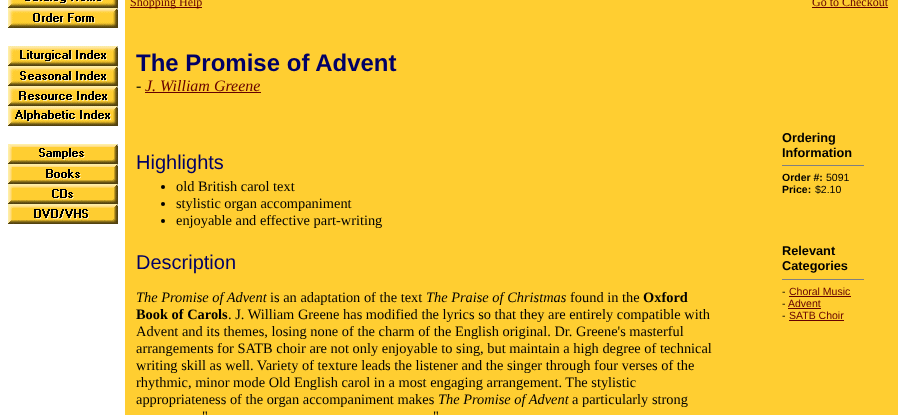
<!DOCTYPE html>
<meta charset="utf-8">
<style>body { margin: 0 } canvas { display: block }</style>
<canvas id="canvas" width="898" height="415"></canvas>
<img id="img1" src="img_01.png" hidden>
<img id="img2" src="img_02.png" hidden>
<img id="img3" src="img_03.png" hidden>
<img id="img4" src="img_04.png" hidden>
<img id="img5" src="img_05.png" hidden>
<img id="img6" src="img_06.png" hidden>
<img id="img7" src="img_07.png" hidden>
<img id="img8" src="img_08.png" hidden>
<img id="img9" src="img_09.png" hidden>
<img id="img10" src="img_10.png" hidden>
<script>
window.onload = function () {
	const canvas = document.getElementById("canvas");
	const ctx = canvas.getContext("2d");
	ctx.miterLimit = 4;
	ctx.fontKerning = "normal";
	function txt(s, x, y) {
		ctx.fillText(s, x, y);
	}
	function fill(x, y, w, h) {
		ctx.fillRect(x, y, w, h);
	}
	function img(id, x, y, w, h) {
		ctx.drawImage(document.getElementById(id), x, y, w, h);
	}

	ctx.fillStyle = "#FFFFFF";
	fill(0, 0, 898, 415);
	ctx.fillStyle = "#FFCE31";
	fill(125, 0, 773, 415);
	img("img1", 8, 0, 110, 8);
	img("img2", 8, 8, 110, 20);
	img("img3", 8, 46, 110, 20);
	img("img4", 8, 66, 110, 20);
	img("img5", 8, 86, 110, 20);
	img("img6", 8, 106, 110, 20);
	img("img7", 8, 144, 110, 20);
	img("img8", 8, 164, 110, 20);
	img("img9", 8, 184, 110, 20);
	img("img10", 8, 204, 110, 20);
	ctx.fillStyle = "#660000";
	fill(130, 7, 72, 1);
	fill(812, 7, 76, 1);
	fill(145, 92, 116, 1);
	ctx.fillStyle = "#000000";
	ctx.beginPath();
	ctx.arc(163, 187, 2, 0, Math.PI * 2);
	ctx.fill();
	ctx.beginPath();
	ctx.arc(163, 204, 2, 0, Math.PI * 2);
	ctx.fill();
	ctx.beginPath();
	ctx.arc(163, 221, 2, 0, Math.PI * 2);
	ctx.fill();
	ctx.fillStyle = "#808080";
	fill(782, 165, 82, 1);
	fill(782, 279, 82, 1);
	ctx.fillStyle = "#660000";
	fill(789, 296, 62, 1);
	fill(788, 308, 33, 1);
	fill(789, 320, 55, 1);
	ctx.font = "12px Liberation Serif";
	txt("Shopping Help", 130, 6);
	txt("Go to Checkout", 812, 6);
	ctx.font = "bold 24px Liberation Sans";
	ctx.fillStyle = "#000066";
	txt("The Promise of Advent", 136, 71);
	ctx.font = "italic 16px Liberation Serif";
	ctx.fillStyle = "#000000";
	txt("-", 136, 91);
	ctx.fillStyle = "#660000";
	txt("J. William Greene", 145, 91);
	ctx.font = "20px Liberation Sans";
	ctx.fillStyle = "#000066";
	txt("Highlights", 136, 169);
	ctx.font = "14.4px Liberation Serif";
	ctx.fillStyle = "#000000";
	txt("old British carol text", 176, 191);
	txt("stylistic organ accompaniment", 176, 208);
	txt("enjoyable and effective part-writing", 176, 225);
	ctx.font = "20px Liberation Sans";
	ctx.fillStyle = "#000066";
	txt("Description", 136, 269);
	ctx.font = "italic 14.4px Liberation Serif";
	ctx.fillStyle = "#000000";
	txt("The Promise of Advent", 136, 302);
	ctx.font = "14.4px Liberation Serif";
	txt("is an adaptation of the text", 270, 302);
	ctx.font = "italic 14.4px Liberation Serif";
	txt("The Praise of Christmas", 426, 302);
	ctx.font = "14.4px Liberation Serif";
	txt("found in the", 570, 302);
	ctx.font = "bold 14.4px Liberation Serif";
	txt("Oxford", 643, 302);
	txt("Book of Carols", 136, 319);
	ctx.font = "14.4px Liberation Serif";
	txt(". J. William Greene has modified the lyrics so that they are entirely compatible with", 228, 319);
	txt("Advent and its themes, losing none of the charm of the English original. Dr. Greene's masterful", 136, 336);
	txt("arrangements for SATB choir are not only enjoyable to sing, but maintain a high degree of technical", 136, 353);
	txt("writing skill as well. Variety of texture leads the listener and the singer through four verses of the", 136, 370);
	txt("rhythmic, minor mode Old English carol in a most engaging arrangement. The stylistic", 136, 387);
	txt("appropriateness of the organ accompaniment makes", 136, 404);
	ctx.font = "italic 14.4px Liberation Serif";
	txt("The Promise of Advent", 438, 404);
	ctx.font = "14.4px Liberation Serif";
	txt("a particularly strong", 572, 404);
	txt("\"", 202, 421);
	txt("\"", 433, 421);
	ctx.font = "bold 12.75px Liberation Sans";
	txt("Ordering", 782, 142);
	txt("Information", 782, 157);
	ctx.font = "bold 10.5px Liberation Sans";
	txt("Order #:", 782, 181);
	ctx.font = "10.5px Liberation Sans";
	txt("5091", 826, 181);
	ctx.font = "bold 10.5px Liberation Sans";
	txt("Price:", 782, 193);
	ctx.font = "10.5px Liberation Sans";
	txt("$2.10", 815, 193);
	ctx.font = "bold 12.75px Liberation Sans";
	txt("Relevant", 782, 255);
	txt("Categories", 782, 270);
	ctx.font = "10.5px Liberation Sans";
	txt("-", 782, 295);
	ctx.fillStyle = "#660000";
	txt("Choral Music", 789, 295);
	ctx.fillStyle = "#000000";
	txt("-", 782, 307);
	ctx.fillStyle = "#660000";
	txt("Advent", 788, 307);
	ctx.fillStyle = "#000000";
	txt("-", 782, 319);
	ctx.fillStyle = "#660000";
	txt("SATB Choir", 789, 319);
};
</script>
